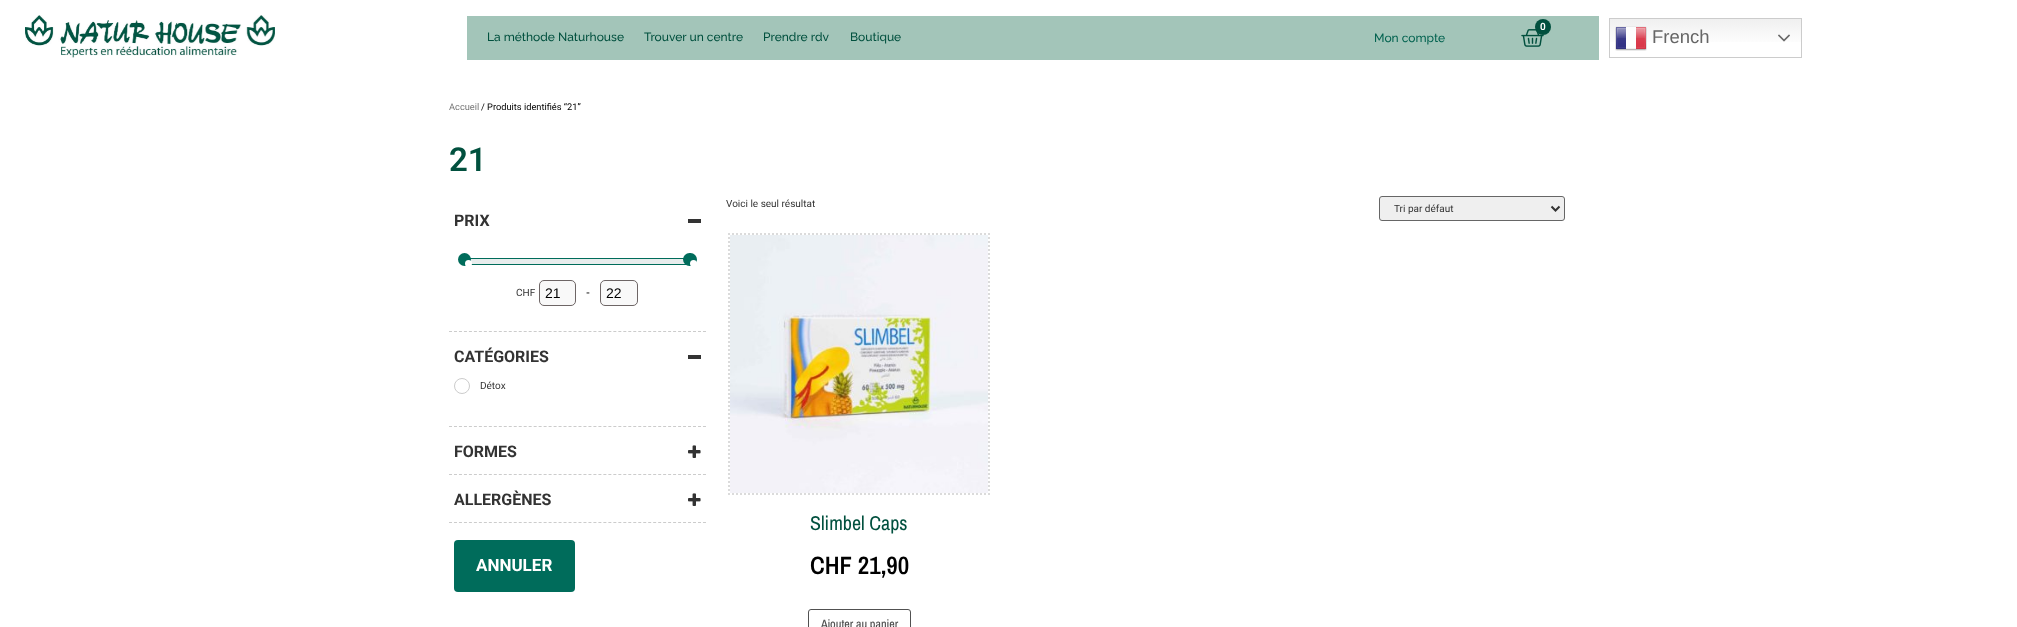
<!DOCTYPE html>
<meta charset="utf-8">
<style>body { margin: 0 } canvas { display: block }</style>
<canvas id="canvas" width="2017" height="627"></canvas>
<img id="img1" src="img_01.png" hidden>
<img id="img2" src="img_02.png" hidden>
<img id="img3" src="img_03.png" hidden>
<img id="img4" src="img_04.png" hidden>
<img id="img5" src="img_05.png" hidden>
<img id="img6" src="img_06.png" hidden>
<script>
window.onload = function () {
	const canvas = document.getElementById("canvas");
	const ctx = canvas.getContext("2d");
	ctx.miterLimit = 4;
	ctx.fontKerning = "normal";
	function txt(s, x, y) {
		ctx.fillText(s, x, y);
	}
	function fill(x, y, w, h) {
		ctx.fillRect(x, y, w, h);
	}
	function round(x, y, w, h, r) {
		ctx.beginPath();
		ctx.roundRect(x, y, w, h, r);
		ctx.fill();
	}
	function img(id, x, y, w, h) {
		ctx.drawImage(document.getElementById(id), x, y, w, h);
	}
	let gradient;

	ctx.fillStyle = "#FFFFFF";
	fill(0, 0, 2017, 627);
	img("img1", 25, 15, 250, 43);
	ctx.fillStyle = "#A3C5B9";
	fill(467, 16, 1132, 44);
	img("img2", 1521, 29, 23, 18);
	ctx.fillStyle = "#01503E";
	ctx.beginPath();
	ctx.arc(1543, 27, 8, 0, Math.PI * 2);
	ctx.fill();
	gradient = ctx.createLinearGradient(1706, 18, 1706, 58);
	gradient.addColorStop(0, "#EFEFEF");
	gradient.addColorStop(0.7, "#FFFFFF");
	ctx.fillStyle = gradient;
	fill(1610, 19, 191, 23);
	ctx.strokeStyle = "#CCCCCC";
	ctx.strokeRect(1609.5, 18.5, 192, 39);
	img("img3", 1615, 26, 32, 25);
	img("img4", 1778, 34, 12, 8);
	ctx.beginPath();
	ctx.moveTo(449, 331.5);
	ctx.lineTo(706, 331.5);
	ctx.setLineDash([3, 1.98]);
	ctx.stroke();
	ctx.fillStyle = "#333333";
	fill(688, 219, 13, 4);
	ctx.strokeStyle = "#006C5B";
	ctx.setLineDash([]);
	ctx.strokeRect(464.5, 258.5, 226, 6);
	ctx.fillStyle = "#E8EDED";
	fill(465, 259, 225, 5);
	ctx.fillStyle = "#006C5B";
	ctx.beginPath();
	ctx.arc(464.5, 259.5, 6.5, 0, Math.PI * 2);
	ctx.fill();
	ctx.fillStyle = "#FFFFFF";
	ctx.beginPath();
	ctx.arc(468.5, 263.5, 3.5, 0, Math.PI * 2);
	ctx.fill();
	ctx.fillStyle = "#006C5B";
	round(683, 253, 14, 13, 6.5);
	ctx.fillStyle = "#FFFFFF";
	ctx.beginPath();
	ctx.arc(693.5, 263.5, 3.5, 0, Math.PI * 2);
	ctx.fill();
	ctx.fillStyle = "#F9F9F9";
	ctx.beginPath();
	ctx.roundRect(539.5, 280.5, 36, 25, 4.5);
	ctx.fill();
	ctx.strokeStyle = "#6E6666";
	ctx.stroke();
	ctx.beginPath();
	ctx.roundRect(600.5, 280.5, 37, 25, 4.5);
	ctx.fill();
	ctx.stroke();
	ctx.beginPath();
	ctx.moveTo(449, 426.5);
	ctx.lineTo(706, 426.5);
	ctx.strokeStyle = "#CCCCCC";
	ctx.setLineDash([3, 1.98]);
	ctx.stroke();
	ctx.fillStyle = "#333333";
	fill(688, 355, 13, 4);
	ctx.beginPath();
	ctx.arc(462, 386, 7.5, 0, Math.PI * 2);
	ctx.setLineDash([]);
	ctx.stroke();
	ctx.beginPath();
	ctx.moveTo(449, 474.5);
	ctx.lineTo(706, 474.5);
	ctx.setLineDash([3, 1.98]);
	ctx.stroke();
	img("img5", 688, 445, 13, 13);
	ctx.beginPath();
	ctx.moveTo(449, 522.5);
	ctx.lineTo(706, 522.5);
	ctx.stroke();
	img("img5", 688, 493, 13, 13);
	ctx.fillStyle = "#006C5B";
	round(454, 540, 121, 52, 4);
	ctx.fillStyle = "#EFEFEF";
	ctx.beginPath();
	ctx.roundRect(1379.5, 196.5, 185, 24, 2.5);
	ctx.fill();
	ctx.strokeStyle = "#666666";
	ctx.setLineDash([]);
	ctx.stroke();
	ctx.beginPath();
	ctx.moveTo(1551.5, 206.5);
	ctx.lineTo(1555.5, 210.5);
	ctx.lineTo(1559.5, 206.5);
	ctx.strokeStyle = "#333333";
	ctx.lineWidth = 2;
	ctx.stroke();
	ctx.beginPath();
	ctx.moveTo(728, 234);
	ctx.lineTo(990, 234);
	ctx.strokeStyle = "#DBDBDB";
	ctx.setLineDash([2, 2]);
	ctx.stroke();
	ctx.beginPath();
	ctx.moveTo(989, 233);
	ctx.lineTo(989, 495);
	ctx.stroke();
	ctx.beginPath();
	ctx.moveTo(728, 494);
	ctx.lineTo(990, 494);
	ctx.stroke();
	ctx.beginPath();
	ctx.moveTo(729, 233);
	ctx.lineTo(729, 495);
	ctx.stroke();
	img("img6", 730, 235, 258, 258);
	ctx.beginPath();
	ctx.roundRect(808.5, 609.5, 102, 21, 2.5);
	ctx.strokeStyle = "#515151";
	ctx.lineWidth = 1;
	ctx.setLineDash([]);
	ctx.stroke();
	ctx.font = "600 10px Roboto";
	ctx.fillStyle = "#FFFFFF";
	txt("0", 1540, 30);
	ctx.font = "500 12px Raleway";
	ctx.fillStyle = "#01503E";
	txt("La méthode Naturhouse", 487, 41);
	txt("Trouver un centre", 644, 41);
	txt("Prendre rdv", 763, 41);
	txt("Boutique", 850, 41);
	ctx.fillStyle = "#036350";
	txt("Mon compte", 1374, 42);
	ctx.font = "18.5px Liberation Sans";
	ctx.fillStyle = "#666666";
	txt("French", 1652, 43);
	ctx.font = "9.25px Roboto";
	ctx.fillStyle = "#767676";
	txt("Accueil", 449, 110);
	ctx.fillStyle = "#000000";
	txt("/ Produits identifiés “21”", 481, 110);
	ctx.font = "600 33px Roboto";
	ctx.fillStyle = "#01503E";
	txt("21", 449, 171);
	ctx.font = "bold 16px Roboto";
	ctx.fillStyle = "#333333";
	txt("PRIX", 454, 226);
	ctx.font = "10px Roboto";
	txt("CHF", 516, 296);
	ctx.font = "14px Liberation Sans";
	ctx.fillStyle = "#000000";
	txt("21", 545, 298);
	ctx.font = "bold 10px Roboto";
	ctx.fillStyle = "#333333";
	txt("-", 586, 296);
	ctx.font = "14px Liberation Sans";
	ctx.fillStyle = "#000000";
	txt("22", 606, 298);
	ctx.font = "bold 16px Roboto";
	ctx.fillStyle = "#333333";
	txt("CATÉGORIES", 454, 362);
	ctx.font = "10px Roboto";
	txt("Détox", 480, 389);
	ctx.font = "bold 16px Roboto";
	txt("FORMES", 454, 457);
	txt("ALLERGÈNES", 454, 505);
	ctx.font = "bold 17px Roboto";
	ctx.fillStyle = "#FFFFFF";
	txt("ANNULER", 476, 571);
	ctx.font = "10px Roboto";
	ctx.fillStyle = "#333333";
	txt("Voici le seul résultat", 726, 207);
	txt("Tri par défaut", 1394, 212);
	ctx.font = "20px Archivo Narrow";
	ctx.fillStyle = "#01503E";
	txt("Slimbel Caps", 810, 530);
	ctx.font = "600 25px Archivo Narrow";
	ctx.fillStyle = "#000000";
	txt("CHF 21,90", 810, 574);
	ctx.font = "500 12px Archivo Narrow";
	ctx.fillStyle = "#515151";
	txt("Ajouter au panier", 821, 628);
};
</script>
